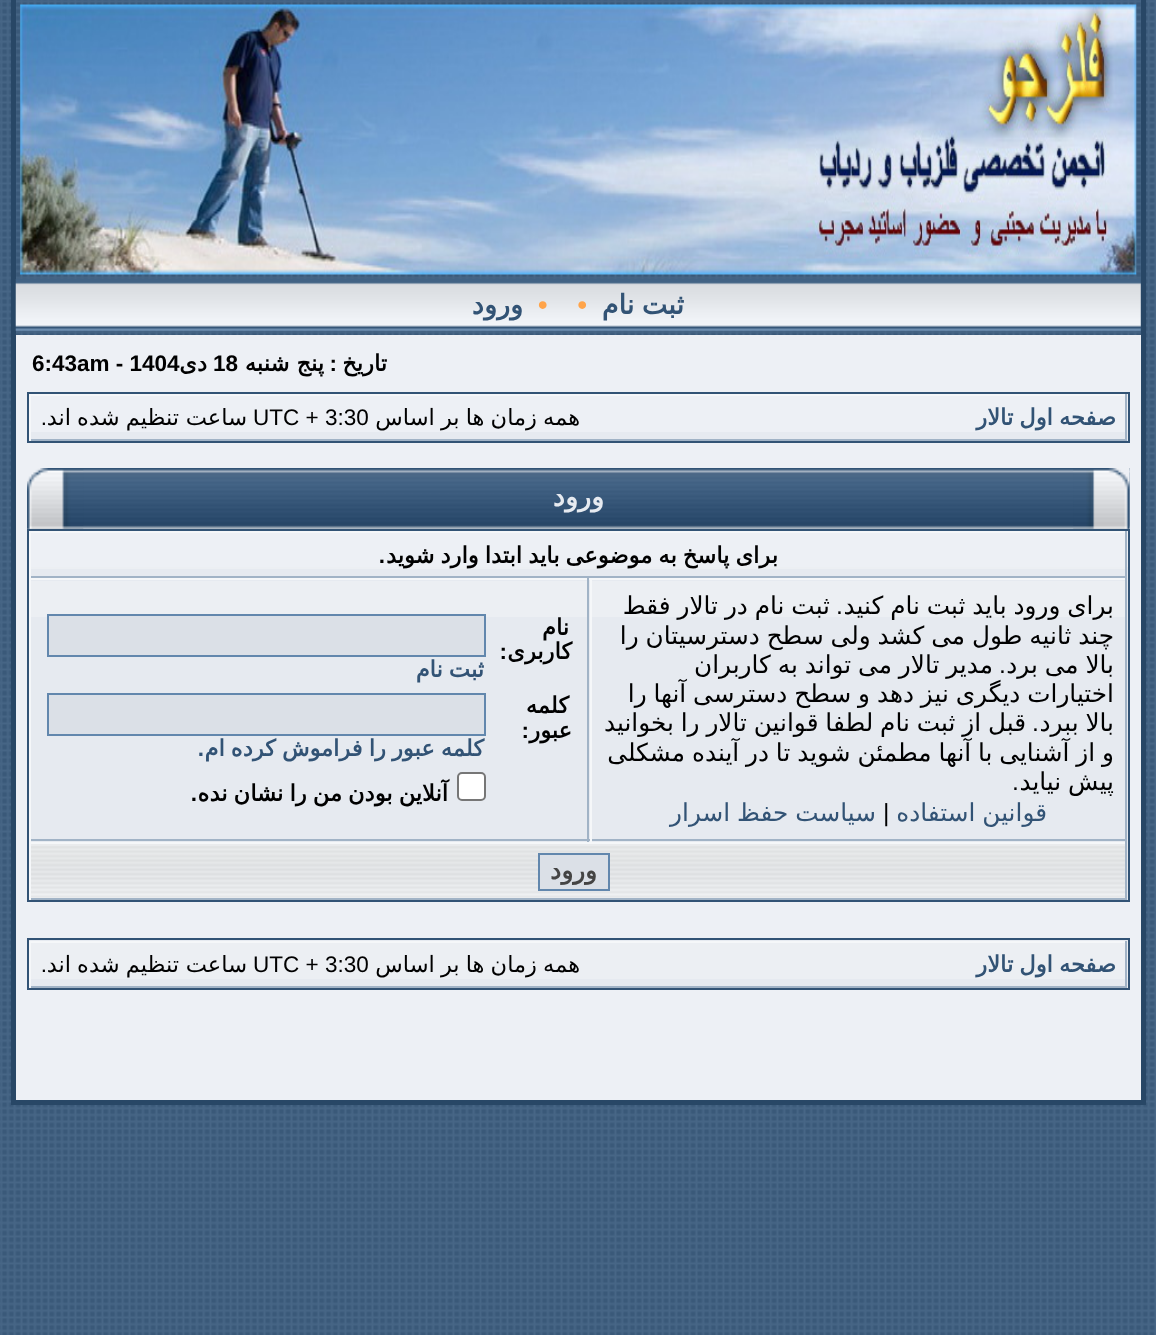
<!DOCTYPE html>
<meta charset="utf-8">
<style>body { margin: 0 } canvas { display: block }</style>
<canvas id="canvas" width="1156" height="1335"></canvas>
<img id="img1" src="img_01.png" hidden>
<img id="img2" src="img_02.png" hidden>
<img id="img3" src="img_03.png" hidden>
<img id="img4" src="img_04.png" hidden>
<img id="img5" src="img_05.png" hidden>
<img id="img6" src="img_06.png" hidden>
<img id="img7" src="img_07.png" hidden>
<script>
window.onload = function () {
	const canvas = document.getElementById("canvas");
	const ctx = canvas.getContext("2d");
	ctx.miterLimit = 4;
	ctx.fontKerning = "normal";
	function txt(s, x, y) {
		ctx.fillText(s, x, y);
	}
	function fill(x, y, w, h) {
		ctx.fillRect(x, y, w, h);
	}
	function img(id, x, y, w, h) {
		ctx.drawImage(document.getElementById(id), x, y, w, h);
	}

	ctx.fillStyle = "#476686";
	fill(0, 0, 1156, 1335);
	img("img1", 0, 0, 1155, 1335);
	ctx.fillStyle = "#284766";
	fill(1141, 0, 5, 1105);
	fill(11, 1100, 1134, 5);
	fill(11, 0, 5, 1105);
	img("img2", 20, 4, 1117, 271);
	img("img3", 15, 279, 1126, 52);
	ctx.fillStyle = "#EDF0F5";
	fill(16, 335, 1125, 765);
	ctx.fillStyle = "#E6EAF0";
	fill(1127, 430, 1, 11);
	ctx.strokeStyle = "#325375";
	ctx.lineWidth = 2;
	ctx.strokeRect(28, 393, 1101, 49);
	fill(31, 432, 1094, 7);
	ctx.fillStyle = "#F5F7F9";
	fill(29, 394, 1098, 2);
	ctx.fillStyle = "#A1B3C6";
	fill(1125, 394, 2, 47);
	fill(29, 439, 1098, 2);
	ctx.fillStyle = "#F5F7F9";
	fill(29, 394, 2, 47);
	img("img4", 27, 468, 1103, 61);
	img("img5", 27, 468, 57, 61);
	img("img6", 1073, 468, 57, 61);
	ctx.fillStyle = "#E6EAF0";
	fill(31, 567, 1097, 333);
	ctx.strokeRect(28, 530, 1101, 371);
	ctx.fillStyle = "#ECEFF3";
	fill(31, 567, 1094, 2);
	ctx.fillStyle = "#F5F7F9";
	fill(29, 531, 1098, 2);
	ctx.fillStyle = "#A1B3C6";
	fill(1125, 531, 2, 47);
	fill(29, 576, 1098, 2);
	ctx.fillStyle = "#F5F7F9";
	fill(29, 531, 2, 47);
	ctx.fillStyle = "#ECEFF3";
	fill(592, 581, 533, 36);
	ctx.fillStyle = "#F5F7F9";
	fill(29, 578, 1098, 2);
	ctx.fillStyle = "#A1B3C6";
	fill(1125, 578, 2, 264);
	fill(590, 839, 537, 2);
	ctx.fillStyle = "#F5F7F9";
	fill(590, 578, 2, 264);
	ctx.fillStyle = "#ECEFF3";
	fill(31, 581, 556, 36);
	ctx.fillStyle = "#A1B3C6";
	fill(587, 578, 2, 264);
	fill(29, 839, 561, 2);
	ctx.fillStyle = "#F5F7F9";
	fill(29, 578, 2, 264);
	ctx.fillStyle = "#DBE0E7";
	ctx.beginPath();
	ctx.rect(48, 615, 437, 41);
	ctx.fill();
	ctx.strokeStyle = "#6287AD";
	ctx.stroke();
	ctx.beginPath();
	ctx.rect(48, 694, 437, 41);
	ctx.fill();
	ctx.stroke();
	ctx.fillStyle = "#FFFFFF";
	ctx.beginPath();
	ctx.roundRect(458, 773, 27, 27, 4);
	ctx.fill();
	ctx.strokeStyle = "#767676";
	ctx.stroke();
	ctx.fillStyle = "#E9EBED";
	fill(31, 844, 1094, 2);
	img("img7", 31, 846, 1097, 53);
	ctx.fillStyle = "#F5F7F9";
	fill(29, 842, 1098, 2);
	ctx.fillStyle = "#A1B3C6";
	fill(1125, 842, 2, 58);
	fill(29, 898, 1098, 2);
	ctx.fillStyle = "#F5F7F9";
	fill(29, 842, 2, 58);
	ctx.fillStyle = "#DBE0E7";
	ctx.beginPath();
	ctx.rect(539, 854, 70, 36);
	ctx.fill();
	ctx.strokeStyle = "#6287AD";
	ctx.stroke();
	ctx.fillStyle = "#E6EAF0";
	fill(29, 940, 1099, 48);
	ctx.fillStyle = "#ECEFF3";
	fill(1127, 941, 1, 36);
	ctx.strokeStyle = "#325375";
	ctx.strokeRect(28, 939, 1101, 50);
	fill(31, 943, 1094, 36);
	ctx.fillStyle = "#F5F7F9";
	fill(29, 941, 1098, 2);
	ctx.fillStyle = "#A1B3C6";
	fill(1125, 941, 2, 47);
	fill(29, 986, 1098, 2);
	ctx.fillStyle = "#F5F7F9";
	fill(29, 941, 2, 47);
	ctx.wordSpacing = "-1px";
	ctx.direction = "rtl";
	ctx.font = "bold 27px DejaVu Sans";
	ctx.fillStyle = "#325375";
	txt("ثبت نام", 684, 314);
	ctx.wordSpacing = "0px";
	ctx.direction = "ltr";
	ctx.font = "bold 27px Liberation Sans";
	ctx.fillStyle = "#FFA44A";
	txt("•    •", 538, 314);
	ctx.direction = "rtl";
	ctx.font = "bold 27px DejaVu Sans";
	ctx.fillStyle = "#325375";
	txt("ورود", 523, 314);
	ctx.font = "bold 22.5px DejaVu Sans";
	ctx.fillStyle = "#000000";
	txt("تاریخ", 387, 371);
	ctx.font = "bold 22.5px Liberation Sans";
	txt(":", 337, 371);
	ctx.font = "bold 22.5px DejaVu Sans";
	txt("پنج شنبه", 324, 371);
	ctx.direction = "ltr";
	ctx.font = "bold 22.5px Liberation Sans";
	txt("18", 213, 371);
	ctx.direction = "rtl";
	ctx.font = "bold 22.5px DejaVu Sans";
	txt("دی", 207, 371);
	ctx.direction = "ltr";
	ctx.font = "bold 22.5px Liberation Sans";
	txt("6:43am - 1404", 32, 371);
	ctx.wordSpacing = "-1px";
	ctx.direction = "rtl";
	ctx.font = "bold 22.5px DejaVu Sans";
	ctx.fillStyle = "#325375";
	txt("صفحه اول تالار", 1116, 425);
	ctx.font = "22.5px DejaVu Sans";
	ctx.fillStyle = "#000000";
	txt("همه زمان ها بر اساس", 580, 425);
	ctx.wordSpacing = "0px";
	ctx.direction = "ltr";
	ctx.font = "22.5px Liberation Sans";
	txt("UTC + 3:30", 253, 425);
	ctx.direction = "rtl";
	ctx.font = "22.5px DejaVu Sans";
	txt("ساعت", 247, 425);
	ctx.wordSpacing = "-1px";
	txt("تنظیم شده اند", 179, 425);
	ctx.wordSpacing = "0px";
	ctx.font = "22.5px Liberation Sans";
	txt(".", 47, 425);
	ctx.font = "bold 27px DejaVu Sans";
	ctx.fillStyle = "#E6EAF0";
	txt("ورود", 604, 506);
	ctx.wordSpacing = "-1px";
	ctx.font = "bold 22.5px DejaVu Sans";
	ctx.fillStyle = "#000000";
	txt("برای پاسخ به موضوعی باید ابتدا وارد شوید", 778, 563);
	ctx.wordSpacing = "0px";
	ctx.font = "bold 22.5px Liberation Sans";
	txt(".", 385, 563);
	ctx.wordSpacing = "-1px";
	ctx.font = "24.75px DejaVu Sans";
	txt("برای ورود باید ثبت نام کنید", 1114, 614);
	ctx.wordSpacing = "0px";
	ctx.font = "24.75px Liberation Sans";
	txt(".", 843, 614);
	ctx.wordSpacing = "-1px";
	ctx.font = "24.75px DejaVu Sans";
	txt("ثبت نام در تالار فقط", 830, 614);
	txt("چند ثانیه طول می کشد ولی سطح دسترسیتان را", 1114, 644);
	txt("بالا می برد", 1114, 673);
	ctx.wordSpacing = "0px";
	ctx.font = "24.75px Liberation Sans";
	txt(".", 1006, 673);
	ctx.wordSpacing = "-1px";
	ctx.font = "24.75px DejaVu Sans";
	txt("مدیر تالار می تواند به کاربران", 993, 673);
	txt("اختیارات دیگری نیز دهد و سطح دسترسی آنها را", 1114, 702);
	txt("بالا ببرد", 1114, 731);
	ctx.wordSpacing = "0px";
	ctx.font = "24.75px Liberation Sans";
	txt(".", 1039, 731);
	ctx.wordSpacing = "-1px";
	ctx.font = "24.75px DejaVu Sans";
	txt("قبل از ثبت نام لطفا قوانین تالار را بخوانید", 1026, 731);
	txt("و از آشنایی با آنها مطمئن شوید تا در آینده مشکلی", 1114, 761);
	txt("پیش نیاید", 1114, 790);
	ctx.wordSpacing = "0px";
	ctx.font = "24.75px Liberation Sans";
	txt(".", 1019, 790);
	ctx.wordSpacing = "-1px";
	ctx.font = "24.75px DejaVu Sans";
	ctx.fillStyle = "#325375";
	txt("قوانین استفاده", 1047, 821);
	ctx.wordSpacing = "0px";
	ctx.direction = "ltr";
	ctx.font = "24.75px Liberation Sans";
	ctx.fillStyle = "#000000";
	txt("|", 883, 821);
	ctx.wordSpacing = "-1px";
	ctx.direction = "rtl";
	ctx.font = "24.75px DejaVu Sans";
	ctx.fillStyle = "#325375";
	txt("سیاست حفظ اسرار", 876, 821);
	ctx.wordSpacing = "0px";
	ctx.font = "bold 22.5px DejaVu Sans";
	ctx.fillStyle = "#000000";
	txt("نام", 569, 635);
	txt("کاربری", 572, 659);
	ctx.font = "bold 22.5px Liberation Sans";
	txt(":", 507, 659);
	ctx.wordSpacing = "-1px";
	ctx.font = "bold 22.5px DejaVu Sans";
	ctx.fillStyle = "#325375";
	txt("ثبت نام", 484, 677);
	ctx.wordSpacing = "0px";
	ctx.fillStyle = "#000000";
	txt("کلمه", 569, 713);
	txt("عبور", 572, 738);
	ctx.font = "bold 22.5px Liberation Sans";
	txt(":", 529, 738);
	ctx.wordSpacing = "-1px";
	ctx.font = "bold 22.5px DejaVu Sans";
	ctx.fillStyle = "#325375";
	txt("کلمه عبور را فراموش کرده ام", 484, 756);
	ctx.wordSpacing = "0px";
	ctx.font = "bold 22.5px Liberation Sans";
	txt(".", 204, 756);
	ctx.wordSpacing = "-1px";
	ctx.font = "bold 22.5px DejaVu Sans";
	ctx.fillStyle = "#000000";
	txt("آنلاین بودن من را نشان نده", 448, 801);
	ctx.wordSpacing = "0px";
	ctx.font = "bold 22.5px Liberation Sans";
	txt(".", 197, 801);
	ctx.font = "bold 24.75px DejaVu Sans";
	ctx.fillStyle = "#444444";
	txt("ورود", 597, 879);
	ctx.wordSpacing = "-1px";
	ctx.font = "bold 22.5px DejaVu Sans";
	ctx.fillStyle = "#325375";
	txt("صفحه اول تالار", 1116, 972);
	ctx.font = "22.5px DejaVu Sans";
	ctx.fillStyle = "#000000";
	txt("همه زمان ها بر اساس", 580, 972);
	ctx.wordSpacing = "0px";
	ctx.direction = "ltr";
	ctx.font = "22.5px Liberation Sans";
	txt("UTC + 3:30", 253, 972);
	ctx.direction = "rtl";
	ctx.font = "22.5px DejaVu Sans";
	txt("ساعت", 247, 972);
	ctx.wordSpacing = "-1px";
	txt("تنظیم شده اند", 179, 972);
	ctx.wordSpacing = "0px";
	ctx.font = "22.5px Liberation Sans";
	txt(".", 47, 972);
};
</script>
